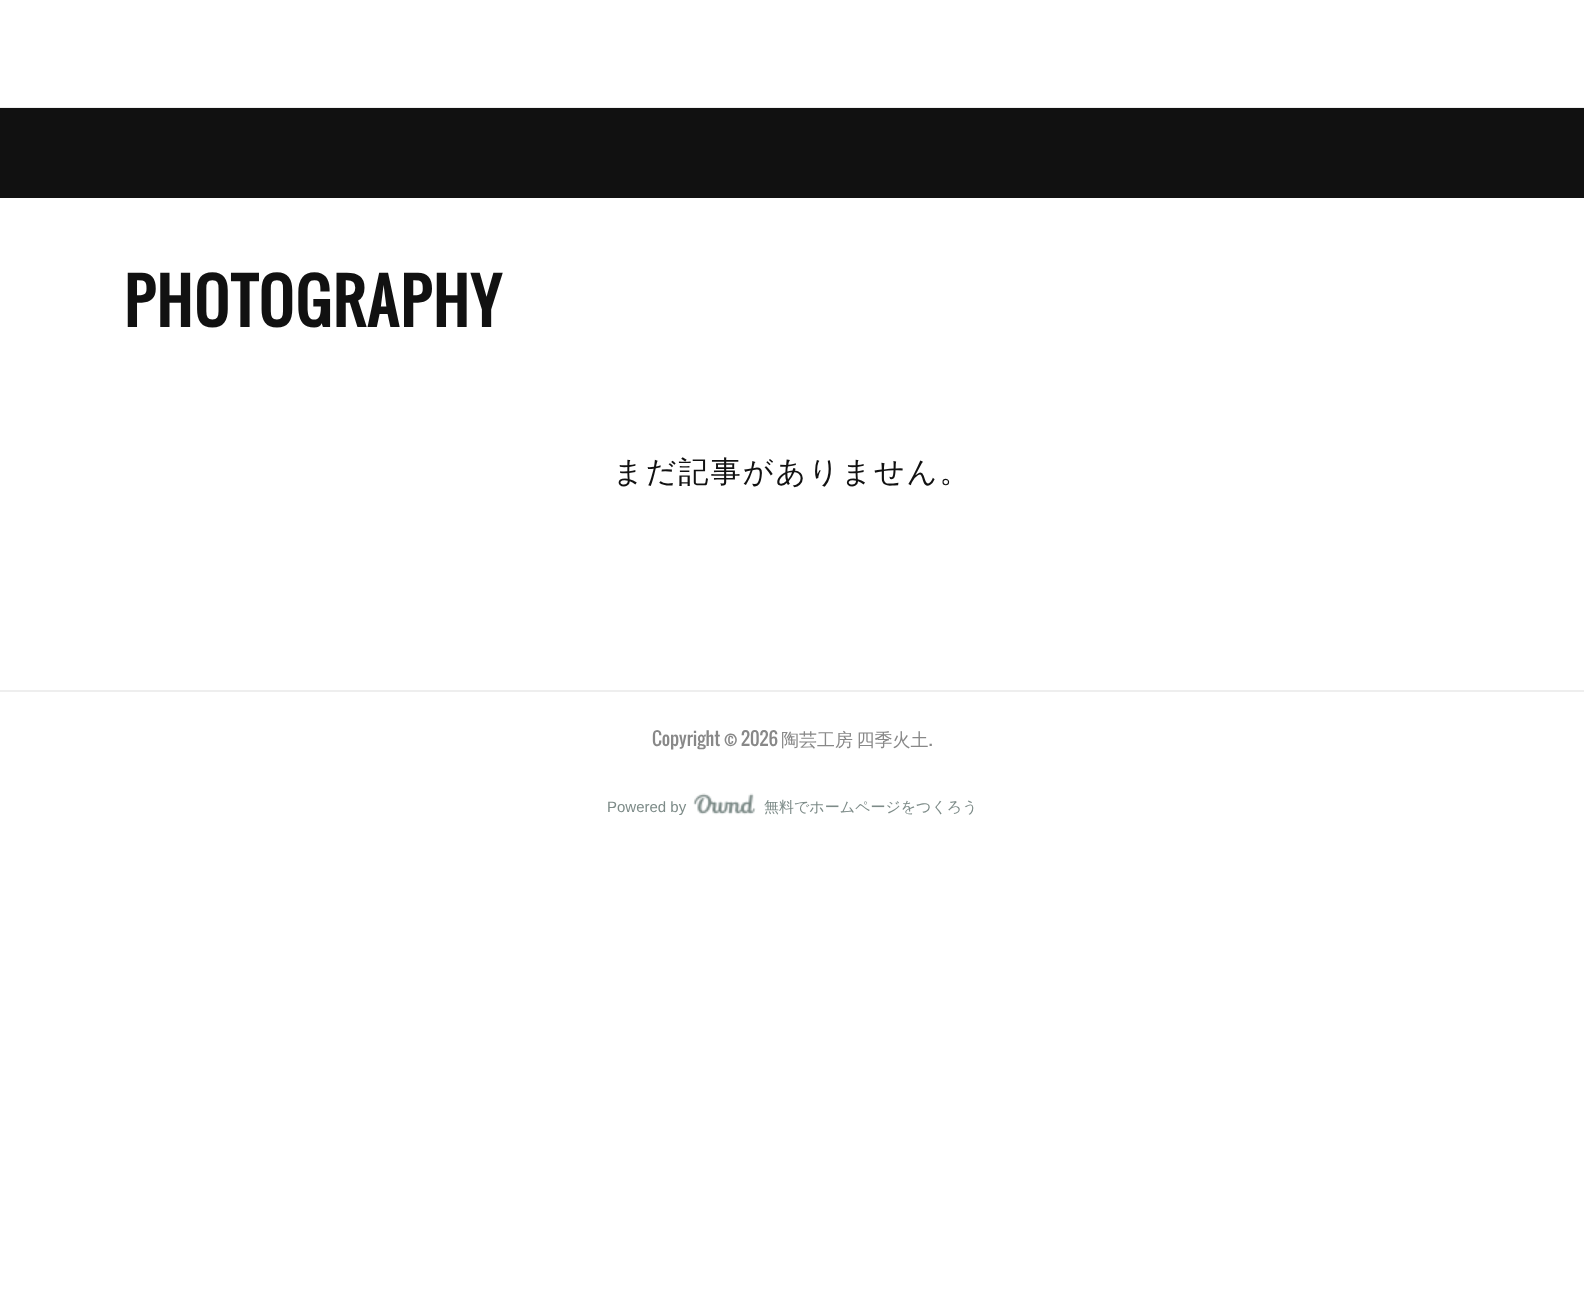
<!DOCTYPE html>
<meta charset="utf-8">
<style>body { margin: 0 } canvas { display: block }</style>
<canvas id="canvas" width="1584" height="1289"></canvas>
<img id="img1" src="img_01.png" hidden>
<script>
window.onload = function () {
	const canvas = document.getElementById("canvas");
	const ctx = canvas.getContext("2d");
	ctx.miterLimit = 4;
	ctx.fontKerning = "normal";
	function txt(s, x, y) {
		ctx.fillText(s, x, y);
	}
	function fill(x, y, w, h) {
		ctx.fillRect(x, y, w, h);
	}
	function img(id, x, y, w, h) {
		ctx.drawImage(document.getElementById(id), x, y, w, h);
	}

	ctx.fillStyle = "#FFFFFF";
	fill(0, 0, 1584, 1289);
	ctx.fillStyle = "#EEEEEE";
	fill(0, 107, 1584, 1);
	ctx.fillStyle = "#111111";
	fill(0, 108, 1584, 90);
	ctx.fillStyle = "#EEEEEE";
	fill(0, 690, 1584, 2);
	img("img1", 693, 793, 63, 22);
	ctx.letterSpacing = "2.1px";
	ctx.font = "bold 60px Oswald";
	ctx.fillStyle = "#111111";
	txt("PHOTOGRAPHY", 124, 327);
	ctx.font = "500 30px WenQuanYi Zen Hei";
	txt("まだ記事がありません。", 613, 482);
	ctx.letterSpacing = "0px";
	ctx.font = "18px Oswald";
	ctx.fillStyle = "#888888";
	txt("Copyright © 2026", 652, 746);
	ctx.wordSpacing = "-2px";
	ctx.font = "500 18px WenQuanYi Zen Hei";
	txt("陶芸工房 四季火土", 781, 746);
	ctx.wordSpacing = "0px";
	ctx.font = "18px Oswald";
	txt(".", 929, 746);
	ctx.font = "15px Liberation Sans";
	ctx.fillStyle = "#7D8B88";
	txt("Powered by", 607, 812);
	ctx.font = "500 15px WenQuanYi Zen Hei";
	txt("無料でホームページをつくろう", 764, 812);
};
</script>
